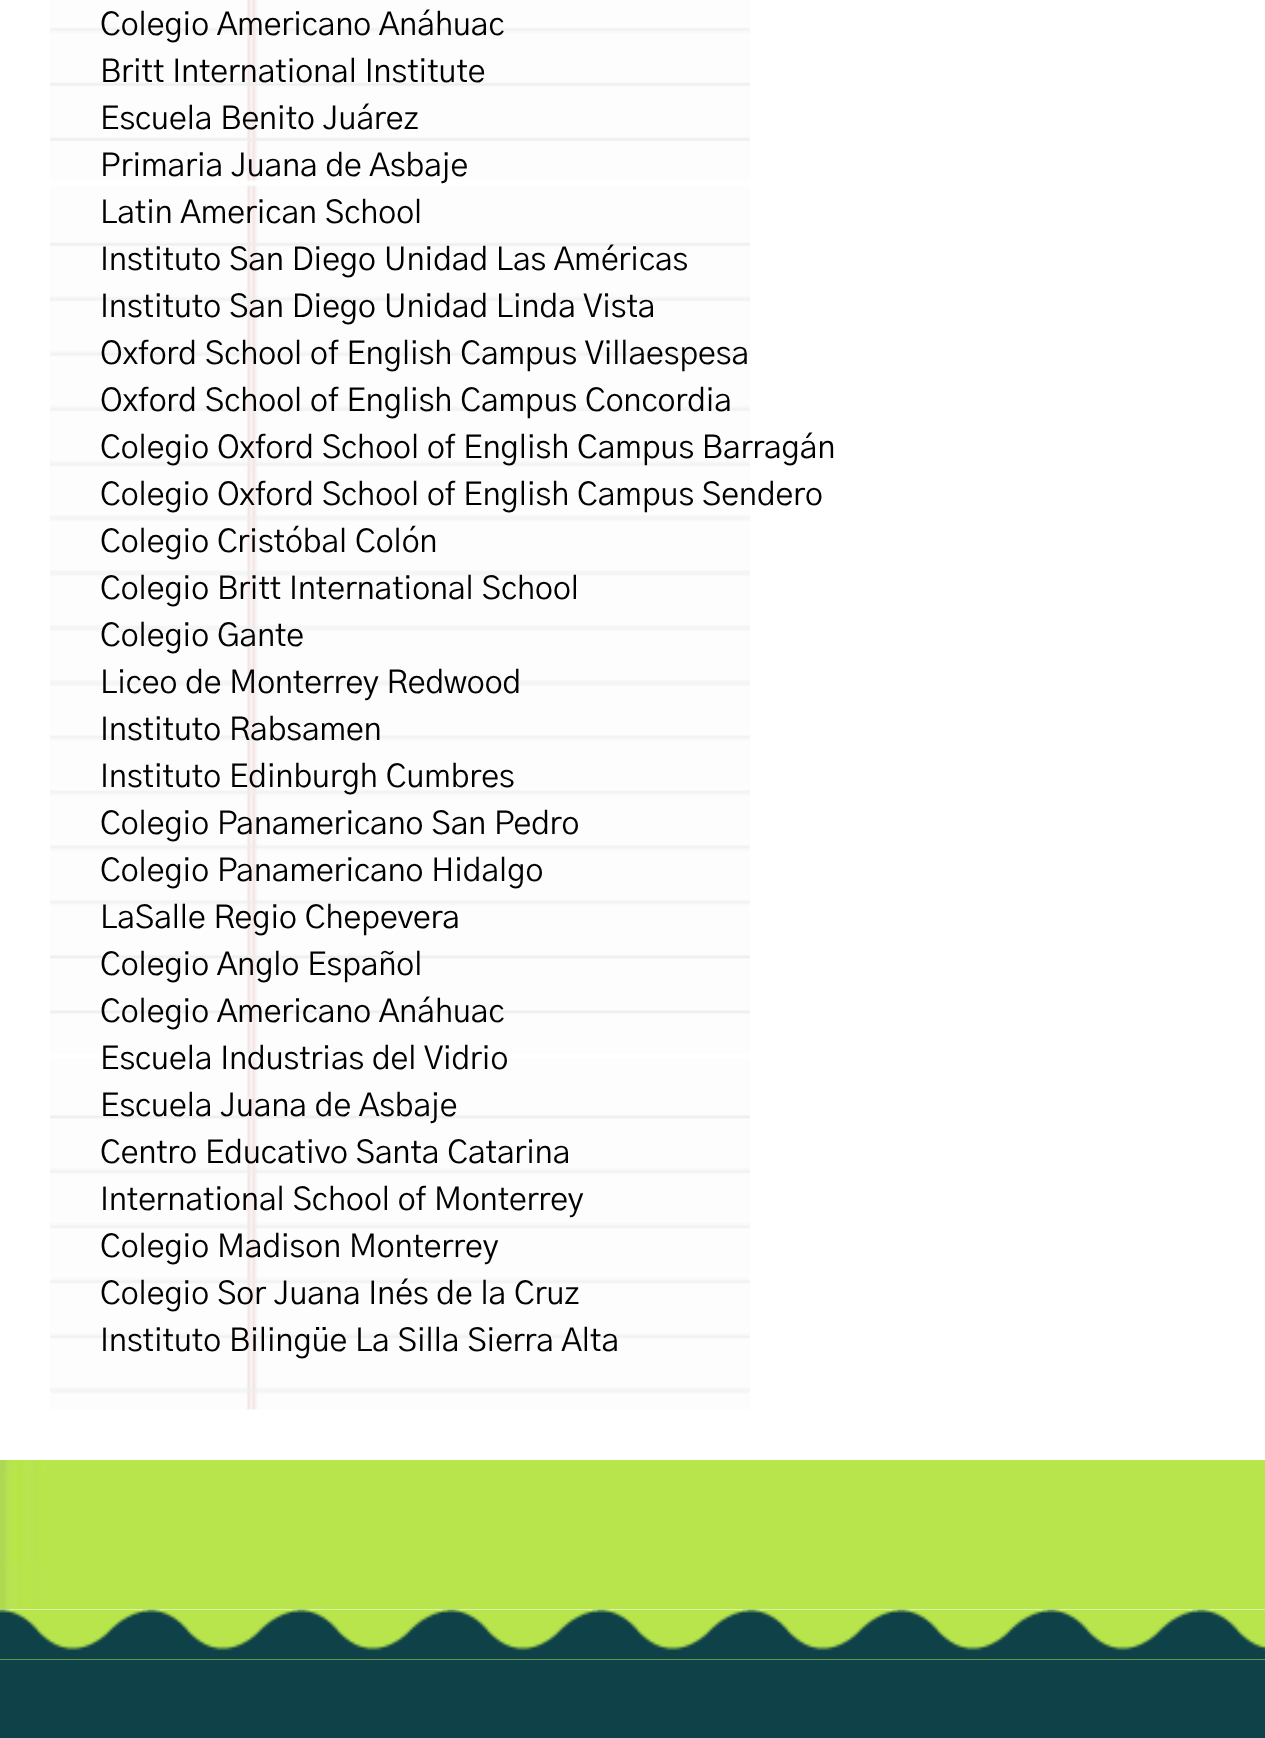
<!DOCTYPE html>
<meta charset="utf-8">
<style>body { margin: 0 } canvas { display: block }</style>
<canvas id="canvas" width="1265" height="1738"></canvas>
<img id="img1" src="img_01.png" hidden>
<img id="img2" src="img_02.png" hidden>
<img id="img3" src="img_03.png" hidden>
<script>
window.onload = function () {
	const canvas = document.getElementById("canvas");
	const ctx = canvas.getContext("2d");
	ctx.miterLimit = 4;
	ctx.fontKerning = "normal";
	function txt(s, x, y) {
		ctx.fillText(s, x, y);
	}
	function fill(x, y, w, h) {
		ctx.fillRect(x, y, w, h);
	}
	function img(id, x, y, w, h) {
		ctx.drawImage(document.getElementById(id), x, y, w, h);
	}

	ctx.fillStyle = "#FFFFFF";
	fill(0, 0, 1265, 1738);
	img("img1", 0, 1460, 1265, 150);
	img("img2", 50, 0, 700, 1410);
	ctx.fillStyle = "#B8E54C";
	fill(0, 1610, 1265, 50);
	img("img3", 0, 1609, 1265, 51);
	ctx.fillStyle = "#0F4148";
	fill(0, 1660, 1265, 78);
	ctx.font = "32px 'Gothic A1'";
	ctx.fillStyle = "#000000";
	txt("Colegio Americano Anáhuac", 100, 35);
	txt("Britt International Institute", 100, 82);
	txt("Escuela Benito Juárez", 100, 129);
	txt("Primaria Juana de Asbaje", 100, 176);
	txt("Latin American School", 100, 223);
	txt("Instituto San Diego Unidad Las Américas", 100, 270);
	txt("Instituto San Diego Unidad Linda Vista", 100, 317);
	txt("Oxford School of English Campus Villaespesa", 100, 364);
	txt("Oxford School of English Campus Concordia", 100, 411);
	txt("Colegio Oxford School of English Campus Barragán", 100, 458);
	txt("Colegio Oxford School of English Campus Sendero", 100, 505);
	txt("Colegio Cristóbal Colón", 100, 552);
	txt("Colegio Britt International School", 100, 599);
	txt("Colegio Gante", 100, 646);
	txt("Liceo de Monterrey Redwood", 100, 693);
	txt("Instituto Rabsamen", 100, 740);
	txt("Instituto Edinburgh Cumbres", 100, 787);
	txt("Colegio Panamericano San Pedro", 100, 834);
	txt("Colegio Panamericano Hidalgo", 100, 881);
	txt("LaSalle Regio Chepevera", 100, 928);
	txt("Colegio Anglo Español", 100, 975);
	txt("Colegio Americano Anáhuac", 100, 1022);
	txt("Escuela Industrias del Vidrio", 100, 1069);
	txt("Escuela Juana de Asbaje", 100, 1116);
	txt("Centro Educativo Santa Catarina", 100, 1163);
	txt("International School of Monterrey", 100, 1210);
	txt("Colegio Madison Monterrey", 100, 1257);
	txt("Colegio Sor Juana Inés de la Cruz", 100, 1304);
	txt("Instituto Bilingüe La Silla Sierra Alta", 100, 1351);
};
</script>
